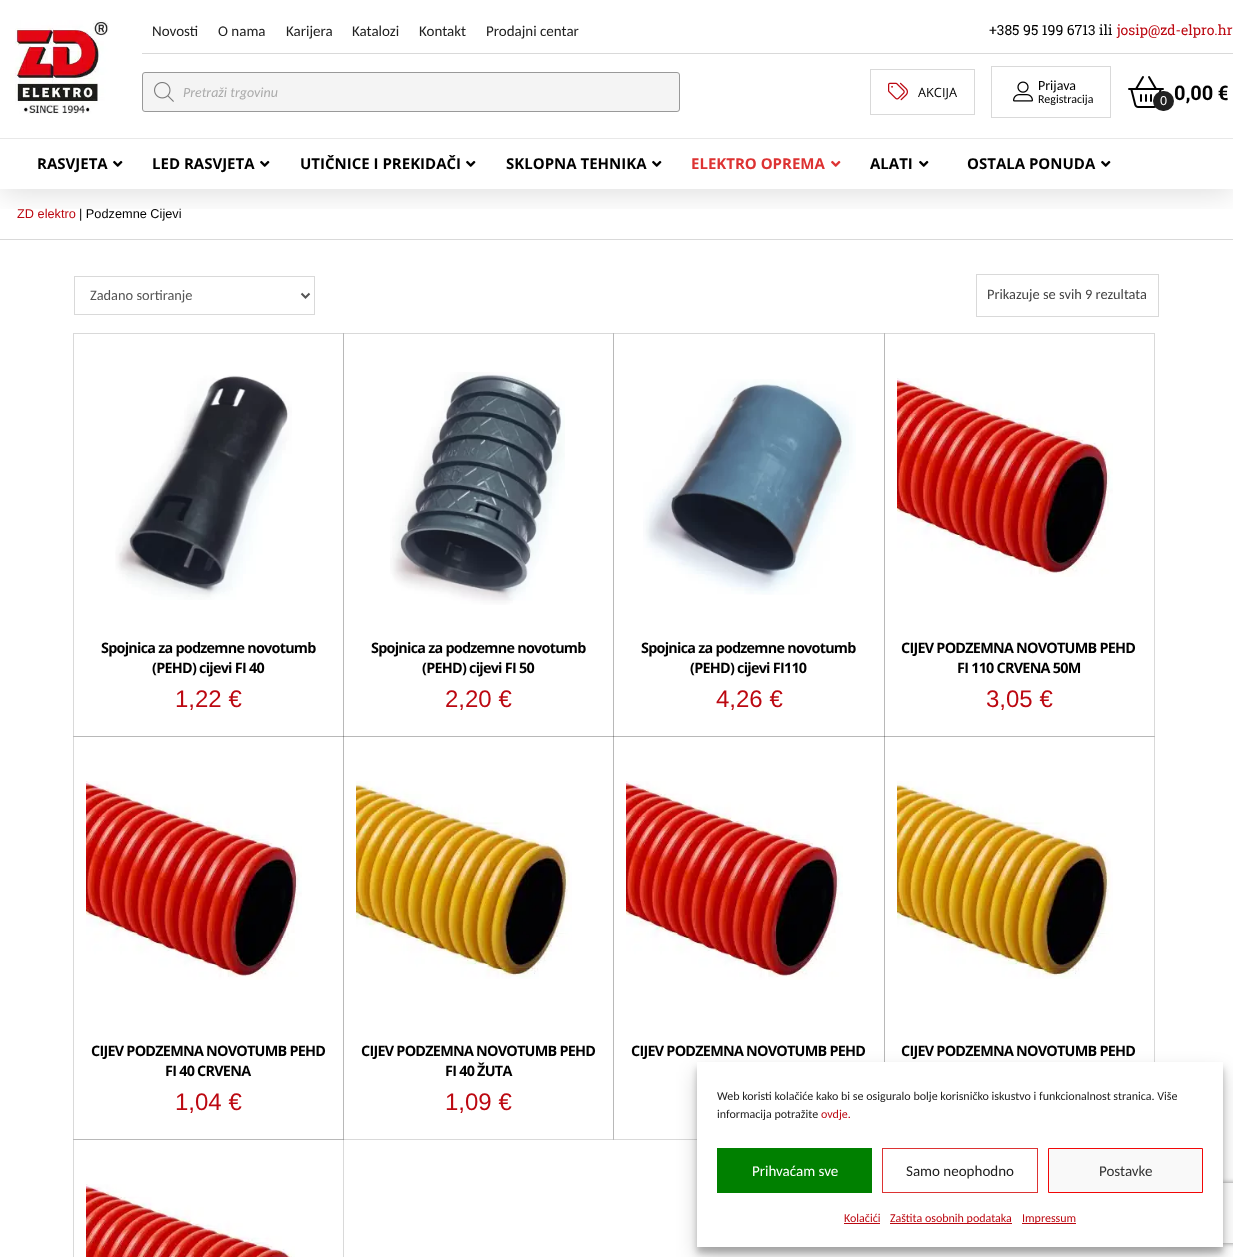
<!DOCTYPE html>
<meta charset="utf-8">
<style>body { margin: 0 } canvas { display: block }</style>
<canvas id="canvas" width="1233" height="1257"></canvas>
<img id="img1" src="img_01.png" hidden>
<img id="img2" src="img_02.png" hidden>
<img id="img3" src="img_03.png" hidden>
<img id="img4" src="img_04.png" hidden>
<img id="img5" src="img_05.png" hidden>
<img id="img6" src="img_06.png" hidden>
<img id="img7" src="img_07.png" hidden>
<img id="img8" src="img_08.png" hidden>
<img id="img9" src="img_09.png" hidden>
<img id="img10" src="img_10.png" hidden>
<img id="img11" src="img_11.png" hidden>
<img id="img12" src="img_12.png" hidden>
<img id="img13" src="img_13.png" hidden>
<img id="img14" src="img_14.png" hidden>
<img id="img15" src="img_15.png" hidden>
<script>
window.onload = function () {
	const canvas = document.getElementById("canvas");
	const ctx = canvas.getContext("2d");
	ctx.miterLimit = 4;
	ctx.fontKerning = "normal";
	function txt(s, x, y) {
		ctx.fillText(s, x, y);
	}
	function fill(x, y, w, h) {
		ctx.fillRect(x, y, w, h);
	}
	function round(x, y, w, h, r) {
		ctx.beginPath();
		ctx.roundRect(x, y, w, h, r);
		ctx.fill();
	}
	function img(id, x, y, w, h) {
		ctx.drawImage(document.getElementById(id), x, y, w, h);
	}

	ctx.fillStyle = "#FFFFFF";
	fill(0, 0, 1233, 1257);
	ctx.fillStyle = "#D9D9D9";
	fill(0, 239, 1233, 1);
	ctx.save();
	ctx.beginPath();
	ctx.rect(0, 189, 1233, 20);
	ctx.clip();
	ctx.fillStyle = "rgba(0, 0, 0, 0.15)";
	ctx.filter = "blur(16px)";
	ctx.beginPath();
	ctx.rect(0, 141, 1233, 50);
	ctx.fill();
	ctx.filter = "none";
	ctx.restore();
	ctx.fillStyle = "#FFFFFF";
	fill(0, 117, 1233, 21);
	ctx.fillStyle = "#E8E8E8";
	fill(0, 138, 1233, 1);
	img("img1", 10, 20, 99, 94);
	ctx.fillStyle = "#D9D9D9";
	fill(142, 53, 1091, 1);
	ctx.fillStyle = "#F4F4F4";
	ctx.beginPath();
	ctx.roundRect(142.5, 72.5, 537, 39, 2.5);
	ctx.fill();
	ctx.strokeStyle = "#999999";
	ctx.stroke();
	img("img2", 154, 82, 20, 20);
	ctx.strokeStyle = "#D9D9D9";
	ctx.strokeRect(870.5, 69.5, 104, 45);
	img("img3", 888, 82, 20, 19);
	ctx.strokeRect(991.5, 66.5, 119, 51);
	img("img4", 1013, 81, 20, 21);
	img("img5", 1128, 76, 36, 32);
	ctx.fillStyle = "#212121";
	round(1153, 91, 21, 20, 10);
	img("img6", 113, 160, 10, 7);
	img("img6", 260, 160, 10, 7);
	img("img6", 466, 160, 10, 7);
	img("img6", 652, 160, 10, 7);
	img("img7", 831, 160, 10, 7);
	img("img6", 919, 160, 10, 7);
	img("img6", 1101, 160, 10, 7);
	ctx.strokeRect(74.5, 276.5, 240, 38);
	ctx.beginPath();
	ctx.moveTo(301.5, 293.5);
	ctx.lineTo(305.5, 297.5);
	ctx.lineTo(309.5, 293.5);
	ctx.strokeStyle = "#555555";
	ctx.lineWidth = 2;
	ctx.stroke();
	ctx.strokeStyle = "#D9D9D9";
	ctx.lineWidth = 1;
	ctx.strokeRect(976.5, 274.5, 182, 42);
	ctx.strokeRect(73.5, 333.5, 270, 403);
	img("img8", 115, 375, 177, 225);
	ctx.strokeStyle = "rgba(0, 0, 0, 0.15)";
	ctx.strokeRect(343.5, 333.5, 270, 403);
	img("img9", 390, 372, 175, 233);
	ctx.strokeRect(613.5, 333.5, 271, 403);
	img("img10", 643, 379, 213, 216);
	ctx.strokeRect(884.5, 333.5, 270, 403);
	img("img11", 897, 378, 216, 199);
	ctx.strokeRect(73.5, 736.5, 270, 403);
	img("img11", 86, 781, 216, 199);
	ctx.strokeRect(343.5, 736.5, 270, 403);
	img("img12", 356, 781, 216, 198);
	ctx.strokeRect(613.5, 736.5, 271, 403);
	img("img13", 626, 781, 217, 199);
	ctx.strokeRect(884.5, 736.5, 270, 403);
	img("img14", 897, 781, 216, 198);
	ctx.strokeRect(73.5, 1139.5, 270, 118);
	img("img15", 86, 1184, 209, 73);
	ctx.fillStyle = "rgba(0, 0, 0, 0.23)";
	ctx.filter = "blur(3px)";
	ctx.beginPath();
	ctx.rect(697, 1068, 526, 185);
	ctx.fill();
	ctx.filter = "none";
	ctx.fillStyle = "rgba(0, 0, 0, 0.19)";
	ctx.filter = "blur(10px)";
	ctx.beginPath();
	ctx.rect(697, 1072, 526, 185);
	ctx.fill();
	ctx.filter = "none";
	ctx.save();
	ctx.beginPath();
	ctx.moveTo(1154, 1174);
	ctx.lineTo(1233, 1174);
	ctx.lineTo(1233, 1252);
	ctx.lineTo(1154, 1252);
	ctx.closePath();
	ctx.moveTo(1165, 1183);
	ctx.lineTo(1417, 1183);
	ctx.bezierCurveTo(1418, 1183, 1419, 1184, 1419, 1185);
	ctx.lineTo(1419, 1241);
	ctx.bezierCurveTo(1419, 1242, 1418, 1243, 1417, 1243);
	ctx.lineTo(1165, 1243);
	ctx.bezierCurveTo(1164, 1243, 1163, 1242, 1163, 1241);
	ctx.lineTo(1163, 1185);
	ctx.bezierCurveTo(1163, 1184, 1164, 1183, 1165, 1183);
	ctx.closePath();
	ctx.clip("evenodd");
	ctx.fillStyle = "#808080";
	ctx.filter = "blur(2.5px)";
	ctx.beginPath();
	ctx.roundRect(1163, 1183, 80, 60, 2);
	ctx.fill();
	ctx.filter = "none";
	ctx.restore();
	ctx.fillStyle = "#FFFFFF";
	fill(697, 1062, 526, 185);
	ctx.fillStyle = "#008000";
	fill(717, 1148, 155, 45);
	ctx.strokeStyle = "#DD3333";
	ctx.strokeRect(882.5, 1148.5, 155, 44);
	ctx.fillStyle = "#F9F9F9";
	ctx.beginPath();
	ctx.rect(1048.5, 1148.5, 154, 44);
	ctx.fill();
	ctx.strokeStyle = "#F20707";
	ctx.stroke();
	ctx.fillStyle = "#BC0811";
	fill(844, 1223, 36, 1);
	fill(890, 1223, 122, 1);
	fill(1022, 1223, 54, 1);
	ctx.font = "15px Carlito";
	ctx.fillStyle = "#212121";
	txt("Novosti", 152, 36);
	txt("O nama", 218, 36);
	txt("Karijera", 286, 36);
	txt("Katalozi", 352, 36);
	txt("Kontakt", 419, 36);
	txt("Prodajni centar", 486, 36);
	ctx.font = "14px Roboto Slab";
	ctx.fillStyle = "#000000";
	txt("+385 95 199 6713 ili", 989, 35);
	ctx.fillStyle = "#BC0811";
	txt("josip@zd-elpro.hr", 1117, 35);
	ctx.font = "italic 14px Carlito";
	ctx.fillStyle = "#ABABAB";
	txt("Pretraži trgovinu", 183, 97);
	ctx.font = "12.75px Open Sans";
	ctx.fillStyle = "#000000";
	txt("AKCIJA", 918, 97);
	ctx.font = "14px Carlito";
	txt("Prijava", 1038, 90);
	ctx.font = "12px Carlito";
	txt("Registracija", 1038, 103);
	ctx.font = "12.75px Liberation Sans";
	ctx.fillStyle = "#FFFFFF";
	txt("0", 1160, 105);
	ctx.font = "bold 20px Roboto Slab";
	ctx.fillStyle = "#000000";
	txt("0,00 €", 1174, 100);
	ctx.font = "bold 15px Open Sans";
	txt("RASVJETA", 37, 169);
	txt("LED RASVJETA", 152, 169);
	txt("UTIČNICE I PREKIDAČI", 300, 169);
	txt("SKLOPNA TEHNIKA", 506, 169);
	ctx.fillStyle = "#DD3333";
	txt("ELEKTRO OPREMA", 691, 169);
	ctx.fillStyle = "#000000";
	txt("ALATI", 870, 169);
	txt("OSTALA PONUDA", 967, 169);
	ctx.font = "12.75px Liberation Sans";
	ctx.fillStyle = "#BC0811";
	txt("ZD elektro", 17, 218);
	ctx.fillStyle = "#000000";
	txt("| Podzemne Cijevi", 79, 218);
	ctx.font = "14.4px Carlito";
	ctx.fillStyle = "#555555";
	txt("Zadano sortiranje", 90, 300);
	ctx.fillStyle = "#444444";
	txt("Prikazuje se svih 9 rezultata", 987, 299);
	ctx.letterSpacing = "-0.75px";
	ctx.font = "bold 14.4px Open Sans";
	ctx.fillStyle = "#000000";
	txt("Spojnica za podzemne novotumb", 101, 653);
	txt("(PEHD) cijevi FI 40", 152, 673);
	ctx.letterSpacing = "0px";
	ctx.font = "24px Liberation Sans";
	ctx.fillStyle = "#BC0811";
	txt("1,22 €", 175, 707);
	ctx.letterSpacing = "-0.75px";
	ctx.font = "bold 14.4px Open Sans";
	ctx.fillStyle = "#000000";
	txt("Spojnica za podzemne novotumb", 371, 653);
	txt("(PEHD) cijevi FI 50", 422, 673);
	ctx.letterSpacing = "0px";
	ctx.font = "24px Liberation Sans";
	ctx.fillStyle = "#BC0811";
	txt("2,20 €", 445, 707);
	ctx.letterSpacing = "-0.75px";
	ctx.font = "bold 14.4px Open Sans";
	ctx.fillStyle = "#000000";
	txt("Spojnica za podzemne novotumb", 641, 653);
	txt("(PEHD) cijevi FI110", 690, 673);
	ctx.letterSpacing = "0px";
	ctx.font = "24px Liberation Sans";
	ctx.fillStyle = "#BC0811";
	txt("4,26 €", 716, 707);
	ctx.letterSpacing = "-0.75px";
	ctx.font = "bold 14.4px Open Sans";
	ctx.fillStyle = "#000000";
	txt("CIJEV PODZEMNA NOVOTUMB PEHD", 901, 653);
	txt("FI 110 CRVENA 50M", 957, 673);
	ctx.letterSpacing = "0px";
	ctx.font = "24px Liberation Sans";
	ctx.fillStyle = "#BC0811";
	txt("3,05 €", 986, 707);
	ctx.letterSpacing = "-0.75px";
	ctx.font = "bold 14.4px Open Sans";
	ctx.fillStyle = "#000000";
	txt("CIJEV PODZEMNA NOVOTUMB PEHD", 91, 1056);
	txt("FI 40 CRVENA", 165, 1076);
	ctx.letterSpacing = "0px";
	ctx.font = "24px Liberation Sans";
	ctx.fillStyle = "#BC0811";
	txt("1,04 €", 175, 1110);
	ctx.letterSpacing = "-0.75px";
	ctx.font = "bold 14.4px Open Sans";
	ctx.fillStyle = "#000000";
	txt("CIJEV PODZEMNA NOVOTUMB PEHD", 361, 1056);
	txt("FI 40 ŽUTA", 445, 1076);
	ctx.letterSpacing = "0px";
	ctx.font = "24px Liberation Sans";
	ctx.fillStyle = "#BC0811";
	txt("1,09 €", 445, 1110);
	ctx.letterSpacing = "-0.75px";
	ctx.font = "bold 14.4px Open Sans";
	ctx.fillStyle = "#000000";
	txt("CIJEV PODZEMNA NOVOTUMB PEHD", 631, 1056);
	txt("CIJEV PODZEMNA NOVOTUMB PEHD", 901, 1056);
	ctx.letterSpacing = "0px";
	ctx.font = "12px Carlito";
	ctx.fillStyle = "#212121";
	txt("Web koristi kolačiće kako bi se osiguralo bolje korisničko iskustvo i funkcionalnost stranica. Više", 717, 1100);
	txt("informacija potražite", 717, 1118);
	ctx.fillStyle = "#BC0811";
	txt("ovdje.", 821, 1118);
	ctx.font = "15px Carlito";
	ctx.fillStyle = "#FFFFFF";
	txt("Prihvaćam sve", 752, 1176);
	ctx.fillStyle = "#212121";
	txt("Samo neophodno", 906, 1176);
	ctx.fillStyle = "#333333";
	txt("Postavke", 1099, 1176);
	ctx.font = "12px Carlito";
	ctx.fillStyle = "#BC0811";
	txt("Kolačići", 844, 1222);
	txt("Zaštita osobnih podataka", 890, 1222);
	txt("Impressum", 1022, 1222);
};
</script>
